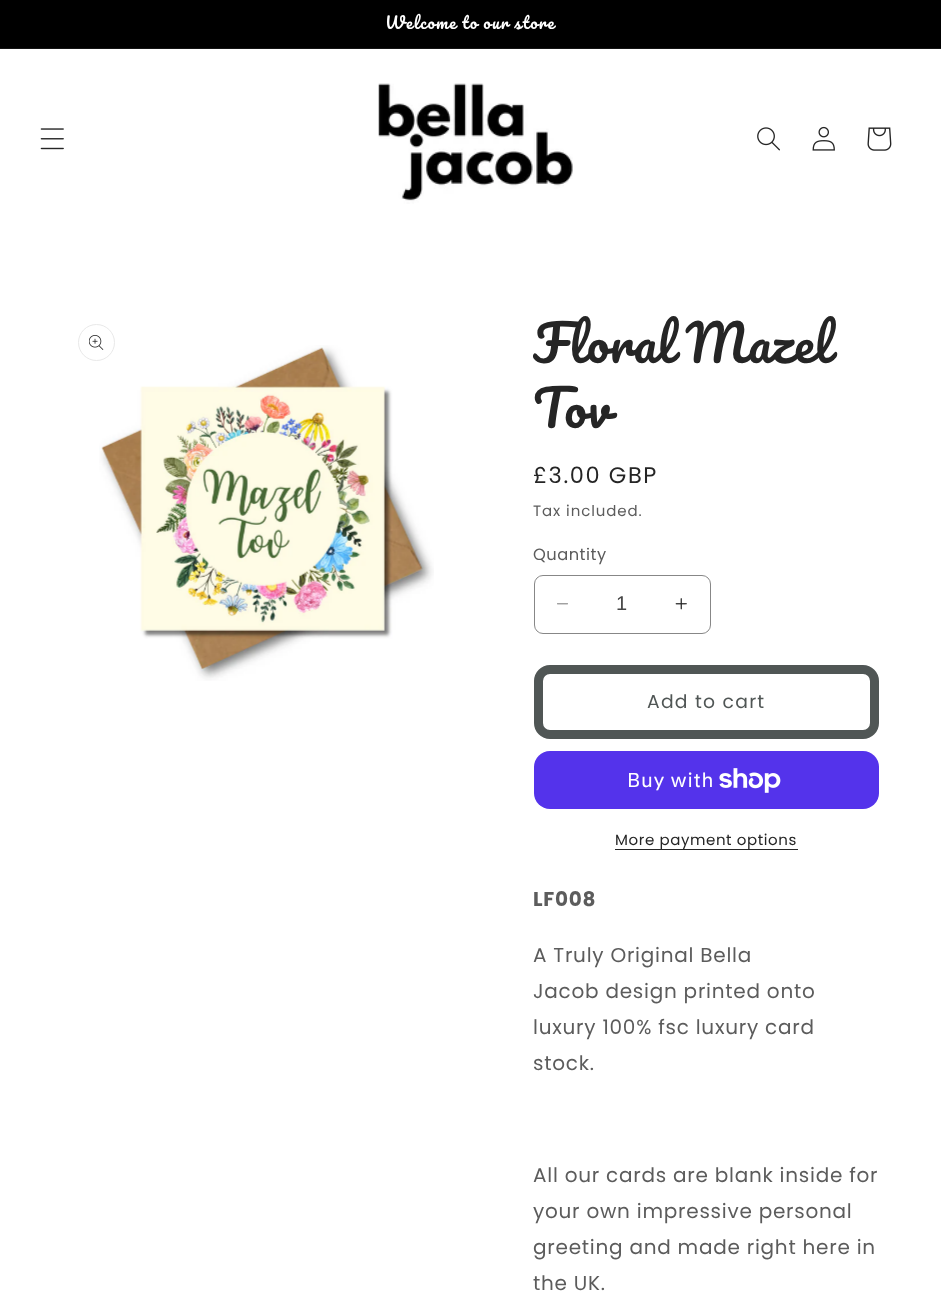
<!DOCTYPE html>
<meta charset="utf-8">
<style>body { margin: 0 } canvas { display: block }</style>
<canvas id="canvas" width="941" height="1311"></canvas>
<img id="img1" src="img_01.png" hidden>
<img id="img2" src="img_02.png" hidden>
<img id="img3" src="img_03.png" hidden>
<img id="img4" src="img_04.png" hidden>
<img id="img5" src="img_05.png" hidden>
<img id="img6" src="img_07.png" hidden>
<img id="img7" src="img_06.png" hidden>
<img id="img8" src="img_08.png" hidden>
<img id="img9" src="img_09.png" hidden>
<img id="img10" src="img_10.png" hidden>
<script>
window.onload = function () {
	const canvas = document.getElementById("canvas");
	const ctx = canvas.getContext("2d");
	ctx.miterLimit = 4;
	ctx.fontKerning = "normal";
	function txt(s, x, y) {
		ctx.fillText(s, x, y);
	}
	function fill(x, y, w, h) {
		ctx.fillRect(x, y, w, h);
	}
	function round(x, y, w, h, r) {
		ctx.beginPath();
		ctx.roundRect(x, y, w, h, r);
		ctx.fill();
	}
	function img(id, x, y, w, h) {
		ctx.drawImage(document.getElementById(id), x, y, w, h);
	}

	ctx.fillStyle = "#FFFFFF";
	fill(0, 0, 941, 1311);
	ctx.fillStyle = "#000000";
	fill(0, 0, 941, 48);
	ctx.fillStyle = "#141414";
	fill(0, 48, 941, 1);
	img("img1", 40, 128, 24, 22);
	img("img2", 378, 83, 195, 121);
	img("img3", 757, 127, 23, 24);
	img("img4", 812, 126, 23, 25);
	img("img5", 867, 127, 25, 24);
	img("img6", 99, 345, 335, 336);
	ctx.beginPath();
	ctx.arc(96.5, 342.5, 18, 0, Math.PI * 2);
	ctx.strokeStyle = "#E9E9E9";
	ctx.stroke();
	img("img7", 89, 335, 15, 15);
	img("img8", 557, 603, 11, 2);
	img("img9", 675, 598, 12, 12);
	ctx.beginPath();
	ctx.roundRect(534.5, 575.5, 176, 58, 8.5);
	ctx.strokeStyle = "#878787";
	ctx.stroke();
	ctx.beginPath();
	ctx.roundRect(538.5, 669.5, 336, 65, 11.5);
	ctx.strokeStyle = "#505655";
	ctx.lineWidth = 9;
	ctx.stroke();
	ctx.fillStyle = "#5433EB";
	round(534, 751, 345, 58, 16);
	img("img10", 719, 768, 62, 25);
	ctx.fillStyle = "#252525";
	fill(615, 849, 183, 1);
	ctx.letterSpacing = "1.25px";
	ctx.wordSpacing = "-0.5px";
	ctx.font = "16.25px Pacifico";
	ctx.fillStyle = "#FFFFFF";
	txt("Welcome to our store", 385, 29);
	ctx.letterSpacing = "0.75px";
	ctx.wordSpacing = "-3px";
	ctx.font = "50px Pacifico";
	ctx.fillStyle = "#252525";
	txt("Floral Mazel", 533, 363);
	ctx.wordSpacing = "0px";
	txt("Tov", 533, 428);
	ctx.letterSpacing = "1.6px";
	ctx.font = "22.5px Poppins";
	txt("£3.00 GBP", 533, 483);
	ctx.letterSpacing = "0.9px";
	ctx.font = "15px Poppins";
	ctx.fillStyle = "#5C5C5C";
	txt("Tax included.", 533, 516);
	ctx.letterSpacing = "0.5px";
	ctx.font = "16.25px Poppins";
	txt("Quantity", 533, 560);
	ctx.letterSpacing = "0px";
	ctx.font = "20px Liberation Sans";
	ctx.fillStyle = "#464646";
	txt("1", 616, 610);
	ctx.letterSpacing = "1.25px";
	ctx.font = "18.75px Poppins";
	ctx.fillStyle = "#505655";
	txt("Add to cart", 647, 708);
	ctx.letterSpacing = "0.75px";
	ctx.font = "20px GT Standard";
	ctx.fillStyle = "#FFFFFF";
	txt("Buy with", 627, 787);
	ctx.letterSpacing = "0.6px";
	ctx.font = "15px Poppins";
	ctx.fillStyle = "#252525";
	txt("More payment options", 615, 845);
	ctx.letterSpacing = "0.75px";
	ctx.font = "bold 20px Poppins";
	ctx.fillStyle = "#5C5C5C";
	txt("LF008", 533, 906);
	ctx.font = "20px Poppins";
	txt("A Truly Original Bella", 533, 962);
	txt("Jacob design printed onto", 533, 998);
	txt("luxury 100% fsc luxury card", 533, 1034);
	txt("stock.", 533, 1070);
	txt("All our cards are blank inside for", 533, 1182);
	txt("your own impressive personal", 533, 1218);
	txt("greeting and made right here in", 533, 1254);
	txt("the UK.", 533, 1290);
};
</script>
